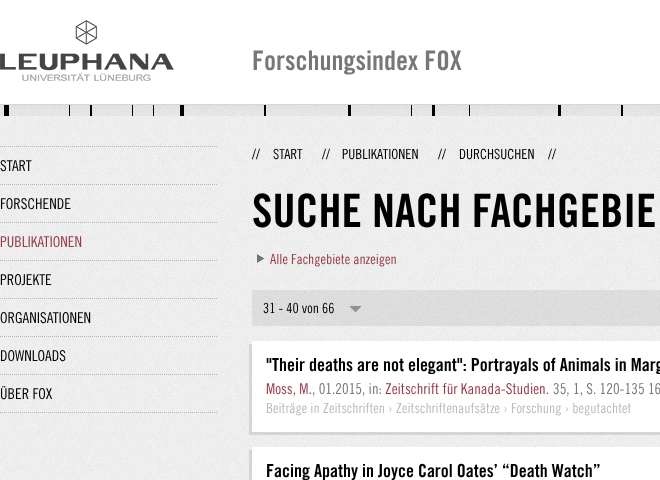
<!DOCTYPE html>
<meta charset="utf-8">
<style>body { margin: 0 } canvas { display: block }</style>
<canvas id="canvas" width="660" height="480"></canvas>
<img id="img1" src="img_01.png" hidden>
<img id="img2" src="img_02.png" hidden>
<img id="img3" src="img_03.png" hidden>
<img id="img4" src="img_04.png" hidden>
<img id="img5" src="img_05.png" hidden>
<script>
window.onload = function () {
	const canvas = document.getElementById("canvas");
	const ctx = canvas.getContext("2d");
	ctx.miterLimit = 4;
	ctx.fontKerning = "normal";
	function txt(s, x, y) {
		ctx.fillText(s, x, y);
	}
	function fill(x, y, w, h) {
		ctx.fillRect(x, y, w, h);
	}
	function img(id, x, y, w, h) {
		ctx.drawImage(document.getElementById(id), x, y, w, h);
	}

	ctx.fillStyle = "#FFFFFF";
	fill(0, 0, 660, 480);
	img("img1", 0, 116, 660, 364);
	ctx.fillStyle = "#D6D6D6";
	fill(0, 104, 660, 1);
	img("img2", 0, 20, 174, 61);
	img("img3", 0, 105, 660, 11);
	ctx.beginPath();
	ctx.moveTo(0, 412.5);
	ctx.lineTo(217, 412.5);
	ctx.strokeStyle = "#B5B5B5";
	ctx.setLineDash([1, 1]);
	ctx.stroke();
	ctx.beginPath();
	ctx.moveTo(0, 146.5);
	ctx.lineTo(217, 146.5);
	ctx.stroke();
	ctx.beginPath();
	ctx.moveTo(0, 184.5);
	ctx.lineTo(217, 184.5);
	ctx.stroke();
	ctx.beginPath();
	ctx.moveTo(0, 222.5);
	ctx.lineTo(217, 222.5);
	ctx.stroke();
	ctx.beginPath();
	ctx.moveTo(0, 260.5);
	ctx.lineTo(217, 260.5);
	ctx.stroke();
	ctx.beginPath();
	ctx.moveTo(0, 298.5);
	ctx.lineTo(217, 298.5);
	ctx.stroke();
	ctx.beginPath();
	ctx.moveTo(0, 336.5);
	ctx.lineTo(217, 336.5);
	ctx.stroke();
	ctx.beginPath();
	ctx.moveTo(0, 374.5);
	ctx.lineTo(217, 374.5);
	ctx.stroke();
	img("img4", 257, 254, 8, 9);
	ctx.fillStyle = "rgba(0, 0, 0, 0.07)";
	fill(252, 290, 408, 36);
	img("img5", 349, 306, 13, 7);
	ctx.fillStyle = "rgba(0, 0, 0, 0.1)";
	ctx.beginPath();
	ctx.moveTo(249, 344);
	ctx.lineTo(249, 435);
	ctx.lineTo(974, 435);
	ctx.lineTo(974, 432);
	ctx.lineTo(252, 432);
	ctx.lineTo(252, 344);
	ctx.closePath();
	ctx.fill();
	ctx.fillStyle = "#FFFFFF";
	fill(252, 341, 408, 91);
	ctx.fillStyle = "rgba(0, 0, 0, 0.1)";
	ctx.beginPath();
	ctx.moveTo(249, 450);
	ctx.lineTo(249, 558);
	ctx.lineTo(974, 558);
	ctx.lineTo(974, 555);
	ctx.lineTo(252, 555);
	ctx.lineTo(252, 450);
	ctx.closePath();
	ctx.fill();
	ctx.fillStyle = "#FFFFFF";
	fill(252, 447, 408, 33);
	ctx.font = "bold 27px 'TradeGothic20'";
	ctx.fillStyle = "#777777";
	txt("Forschungsindex FOX", 252, 70);
	ctx.font = "15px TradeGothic";
	ctx.fillStyle = "#000000";
	txt("START", 0, 171);
	txt("FORSCHENDE", 0, 209);
	ctx.fillStyle = "#973948";
	txt("PUBLIKATIONEN", 0, 247);
	ctx.fillStyle = "#000000";
	txt("PROJEKTE", 0, 285);
	txt("ORGANISATIONEN", 0, 323);
	txt("DOWNLOADS", 0, 361);
	txt("ÜBER FOX", 0, 399);
	ctx.font = "14px TradeGothic";
	txt("//", 252, 159);
	txt("START", 273, 159);
	txt("//", 322, 159);
	txt("PUBLIKATIONEN", 342, 159);
	txt("//", 438, 159);
	txt("DURCHSUCHEN", 459, 159);
	txt("//", 548, 159);
	ctx.font = "bold 46px 'TradeGothic20'";
	txt("SUCHE NACH FACHGEBIE", 252, 227);
	ctx.font = "14px TradeGothic";
	ctx.fillStyle = "#973948";
	txt("Alle Fachgebiete anzeigen", 270, 264);
	ctx.fillStyle = "#000000";
	txt("31 - 40 von 66", 263, 313);
	ctx.font = "bold 18px 'TradeGothic20'";
	txt("\"Their deaths are not elegant\": Portrayals of Animals in Marg", 266, 371);
	ctx.font = "15px TradeGothic";
	ctx.fillStyle = "#973948";
	txt("Moss, M.", 266, 394);
	ctx.fillStyle = "#777777";
	txt(", 01.2015, in:", 312, 394);
	ctx.fillStyle = "#973948";
	txt("Zeitschrift für Kanada-Studien.", 385, 394);
	ctx.fillStyle = "#777777";
	txt("35, 1, S. 120-135 16", 553, 394);
	ctx.font = "14px TradeGothic";
	ctx.fillStyle = "#BBBBBB";
	txt("Beiträge in Zeitschriften › Zeitschriftenaufsätze › Forschung › begutachtet", 266, 413);
	ctx.font = "bold 18px 'TradeGothic20'";
	ctx.fillStyle = "#000000";
	txt("Facing Apathy in Joyce Carol Oates’ “Death Watch”", 266, 477);
};
</script>
